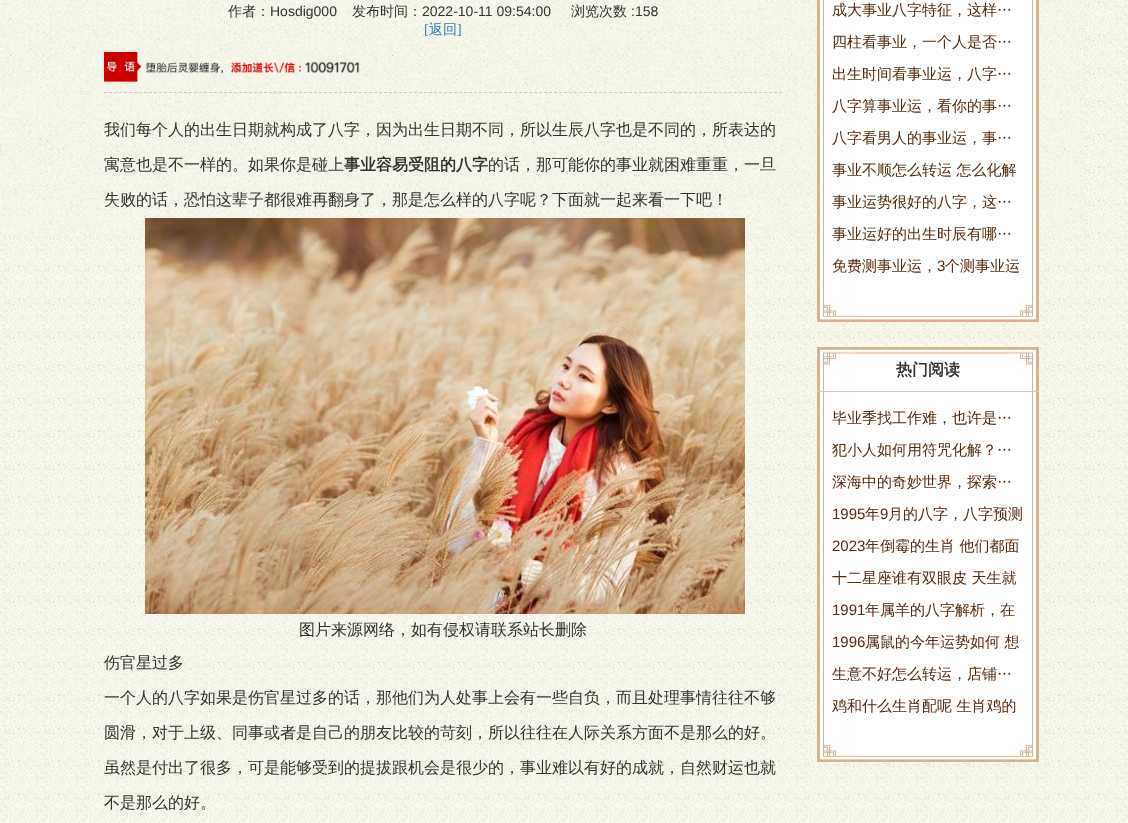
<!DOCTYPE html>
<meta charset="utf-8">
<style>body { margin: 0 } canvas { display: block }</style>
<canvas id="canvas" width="1128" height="823"></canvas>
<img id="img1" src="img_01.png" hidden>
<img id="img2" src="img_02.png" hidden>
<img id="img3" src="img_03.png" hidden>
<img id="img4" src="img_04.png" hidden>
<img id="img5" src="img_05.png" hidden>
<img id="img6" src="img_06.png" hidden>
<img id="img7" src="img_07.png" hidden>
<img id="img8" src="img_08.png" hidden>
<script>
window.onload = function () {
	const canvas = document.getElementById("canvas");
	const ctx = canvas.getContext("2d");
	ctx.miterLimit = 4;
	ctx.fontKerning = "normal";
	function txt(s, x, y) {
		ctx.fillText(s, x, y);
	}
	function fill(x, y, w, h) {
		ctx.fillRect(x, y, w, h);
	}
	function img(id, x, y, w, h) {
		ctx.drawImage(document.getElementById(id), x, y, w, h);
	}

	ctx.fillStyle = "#FFFFFF";
	fill(0, 0, 1128, 823);
	img("img1", 0, 0, 1128, 823);
	img("img2", 0, 0, 1083, 237);
	ctx.beginPath();
	ctx.moveTo(104, 92.5);
	ctx.lineTo(782, 92.5);
	ctx.strokeStyle = "#CACACA";
	ctx.setLineDash([3, 2]);
	ctx.stroke();
	img("img3", 104, 52, 257, 30);
	img("img4", 145, 218, 600, 396);
	img("img5", 817, 0, 222, 292);
	img("img6", 817, 292, 222, 30);
	img("img7", 817, 347, 222, 44);
	ctx.fillStyle = "#CCCCCC";
	fill(817, 391, 222, 1);
	img("img8", 817, 392, 222, 340);
	img("img6", 817, 732, 222, 30);
	ctx.font = "500 14px WenQuanYi Zen Hei";
	ctx.fillStyle = "#333333";
	txt("作者：", 228, 16);
	ctx.font = "14px Liberation Sans";
	txt("Hosdig000", 270, 16);
	ctx.font = "500 14px WenQuanYi Zen Hei";
	txt("发布时间：", 352, 16);
	ctx.font = "14px Liberation Sans";
	txt("2022-10-11 09:54:00", 422, 16);
	ctx.font = "500 14px WenQuanYi Zen Hei";
	txt("浏览次数", 571, 16);
	ctx.font = "14px Liberation Sans";
	txt(":158", 631, 16);
	ctx.font = "14px Liberation Serif";
	ctx.fillStyle = "#337AB7";
	txt("[", 424, 34);
	ctx.font = "500 14px WenQuanYi Zen Hei";
	txt("返回", 429, 34);
	ctx.font = "14px Liberation Serif";
	txt("]", 457, 34);
	ctx.font = "500 16px WenQuanYi Zen Hei";
	ctx.fillStyle = "#333333";
	txt("我们每个人的出生日期就构成了八字，因为出生日期不同，所以生辰八字也是不同的，所表达的", 104, 135);
	txt("寓意也是不一样的。如果你是碰上", 104, 170);
	ctx.font = "bold 16px WenQuanYi Zen Hei";
	txt("事业容易受阻的八字", 344, 170);
	ctx.font = "500 16px WenQuanYi Zen Hei";
	txt("的话，那可能你的事业就困难重重，一旦", 488, 170);
	txt("失败的话，恐怕这辈子都很难再翻身了，那是怎么样的八字呢？下面就一起来看一下吧！", 104, 205);
	txt("图片来源网络，如有侵权请联系站长删除", 299, 635);
	txt("伤官星过多", 104, 668);
	txt("一个人的八字如果是伤官星过多的话，那他们为人处事上会有一些自负，而且处理事情往往不够", 104, 703);
	txt("圆滑，对于上级、同事或者是自己的朋友比较的苛刻，所以往往在人际关系方面不是那么的好。", 104, 738);
	txt("虽然是付出了很多，可是能够受到的提拔跟机会是很少的，事业难以有好的成就，自然财运也就", 104, 773);
	txt("不是那么的好。", 104, 808);
	ctx.font = "500 15px WenQuanYi Zen Hei";
	ctx.fillStyle = "#552B11";
	txt("成大事业八字特征，这样…", 832, 15);
	txt("四柱看事业，一个人是否…", 832, 47);
	txt("出生时间看事业运，八字…", 832, 79);
	txt("八字算事业运，看你的事…", 832, 111);
	txt("八字看男人的事业运，事…", 832, 143);
	txt("事业不顺怎么转运 怎么化解", 832, 175);
	txt("事业运势很好的八字，这…", 832, 207);
	txt("事业运好的出生时辰有哪…", 832, 239);
	txt("免费测事业运，", 832, 271);
	ctx.font = "15px Liberation Sans";
	txt("3", 937, 271);
	ctx.font = "500 15px WenQuanYi Zen Hei";
	txt("个测事业运", 945, 271);
	ctx.font = "bold 16px WenQuanYi Zen Hei";
	ctx.fillStyle = "#333333";
	txt("热门阅读", 896, 375);
	ctx.font = "500 15px WenQuanYi Zen Hei";
	ctx.fillStyle = "#552B11";
	txt("毕业季找工作难，也许是…", 832, 423);
	txt("犯小人如何用符咒化解？…", 832, 455);
	txt("深海中的奇妙世界，探索…", 832, 487);
	ctx.font = "15px Liberation Sans";
	txt("1995", 832, 519);
	ctx.font = "500 15px WenQuanYi Zen Hei";
	txt("年", 865, 519);
	ctx.font = "15px Liberation Sans";
	txt("9", 880, 519);
	ctx.font = "500 15px WenQuanYi Zen Hei";
	txt("月的八字，八字预测", 888, 519);
	ctx.font = "15px Liberation Sans";
	txt("2023", 832, 551);
	ctx.font = "500 15px WenQuanYi Zen Hei";
	txt("年倒霉的生肖 他们都面", 865, 551);
	txt("十二星座谁有双眼皮 天生就", 832, 583);
	ctx.font = "15px Liberation Sans";
	txt("1991", 832, 615);
	ctx.font = "500 15px WenQuanYi Zen Hei";
	txt("年属羊的八字解析，在", 865, 615);
	ctx.font = "15px Liberation Sans";
	txt("1996", 832, 647);
	ctx.font = "500 15px WenQuanYi Zen Hei";
	txt("属鼠的今年运势如何 想", 865, 647);
	txt("生意不好怎么转运，店铺…", 832, 679);
	txt("鸡和什么生肖配呢 生肖鸡的", 832, 711);
};
</script>
